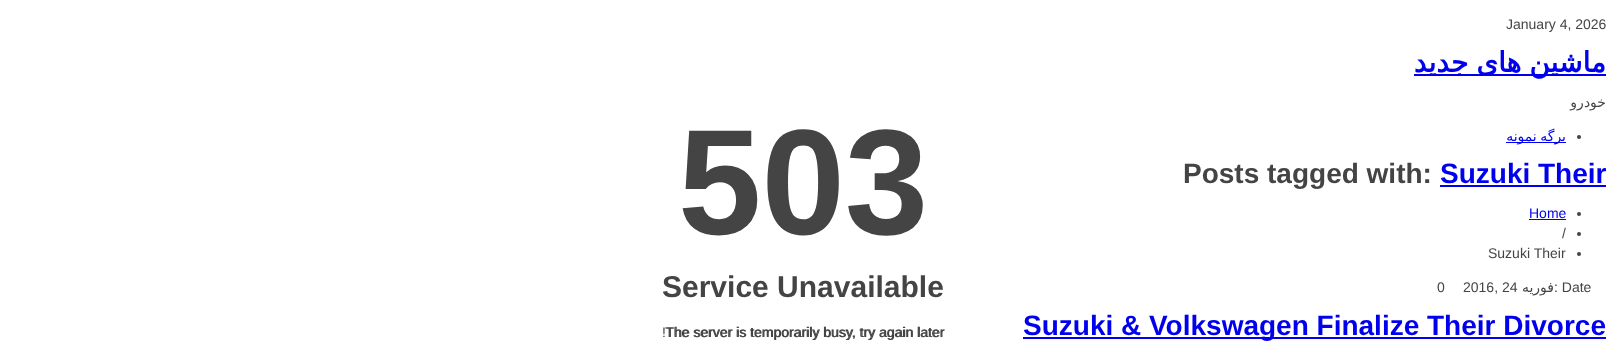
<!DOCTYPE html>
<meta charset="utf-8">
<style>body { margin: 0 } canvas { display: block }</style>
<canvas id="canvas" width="1606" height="358"></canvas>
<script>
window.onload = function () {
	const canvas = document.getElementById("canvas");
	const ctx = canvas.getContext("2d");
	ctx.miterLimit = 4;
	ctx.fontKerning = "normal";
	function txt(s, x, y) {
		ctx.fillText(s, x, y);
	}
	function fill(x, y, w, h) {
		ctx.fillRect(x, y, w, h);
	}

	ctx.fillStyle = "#FFFFFF";
	fill(0, 0, 1606, 358);
	ctx.fillStyle = "#0000EE";
	fill(1414, 74, 192, 2);
	fill(1506, 142, 60, 1);
	ctx.fillStyle = "#444444";
	ctx.beginPath();
	ctx.arc(1579, 137, 2, 0, Math.PI * 2);
	ctx.fill();
	ctx.fillStyle = "#0000EE";
	fill(1023, 337, 583, 2);
	fill(1440, 185, 166, 2);
	fill(1529, 219, 37, 1);
	ctx.fillStyle = "#444444";
	ctx.beginPath();
	ctx.arc(1579, 214, 2, 0, Math.PI * 2);
	ctx.fill();
	ctx.beginPath();
	ctx.arc(1579, 234, 2, 0, Math.PI * 2);
	ctx.fill();
	ctx.beginPath();
	ctx.arc(1579, 254, 2, 0, Math.PI * 2);
	ctx.fill();
	ctx.font = "14px Liberation Sans";
	txt("January 4, 2026", 1506, 29);
	ctx.wordSpacing = "-1px";
	ctx.direction = "rtl";
	ctx.font = "bold 28px DejaVu Sans";
	ctx.fillStyle = "#0000EE";
	txt("ماشین های جدید", 1606, 72);
	ctx.wordSpacing = "0px";
	ctx.font = "14px DejaVu Sans";
	ctx.fillStyle = "#444444";
	txt("خودرو", 1606, 107);
	ctx.wordSpacing = "-1px";
	ctx.fillStyle = "#0000EE";
	txt("برگه نمونه", 1566, 141);
	ctx.wordSpacing = "0px";
	ctx.direction = "ltr";
	ctx.font = "bold 150px Liberation Sans";
	ctx.fillStyle = "#444444";
	txt("503", 678, 234);
	ctx.font = "bold 30px Liberation Sans";
	txt("Service Unavailable", 662, 297);
	ctx.font = "14px Liberation Sans";
	txt("!The server is temporarily busy, try again later", 662, 337);
	txt("The server is temporarily busy, try again later", 665, 337);
	txt("0", 1437, 292);
	txt("2016, 24", 1463, 292);
	ctx.direction = "rtl";
	ctx.font = "14px DejaVu Sans";
	txt("فوریه", 1554, 292);
	ctx.direction = "ltr";
	ctx.font = "14px Liberation Sans";
	txt(": Date", 1554, 292);
	ctx.font = "bold 28px Liberation Sans";
	ctx.fillStyle = "#0000EE";
	txt("Suzuki & Volkswagen Finalize Their Divorce", 1023, 335);
	ctx.fillStyle = "#444444";
	txt("Posts tagged with:", 1183, 183);
	ctx.fillStyle = "#0000EE";
	txt("Suzuki Their", 1440, 183);
	ctx.font = "14px Liberation Sans";
	txt("Home", 1529, 218);
	ctx.fillStyle = "#444444";
	txt("/", 1562, 238);
	txt("Suzuki Their", 1488, 258);
};
</script>
